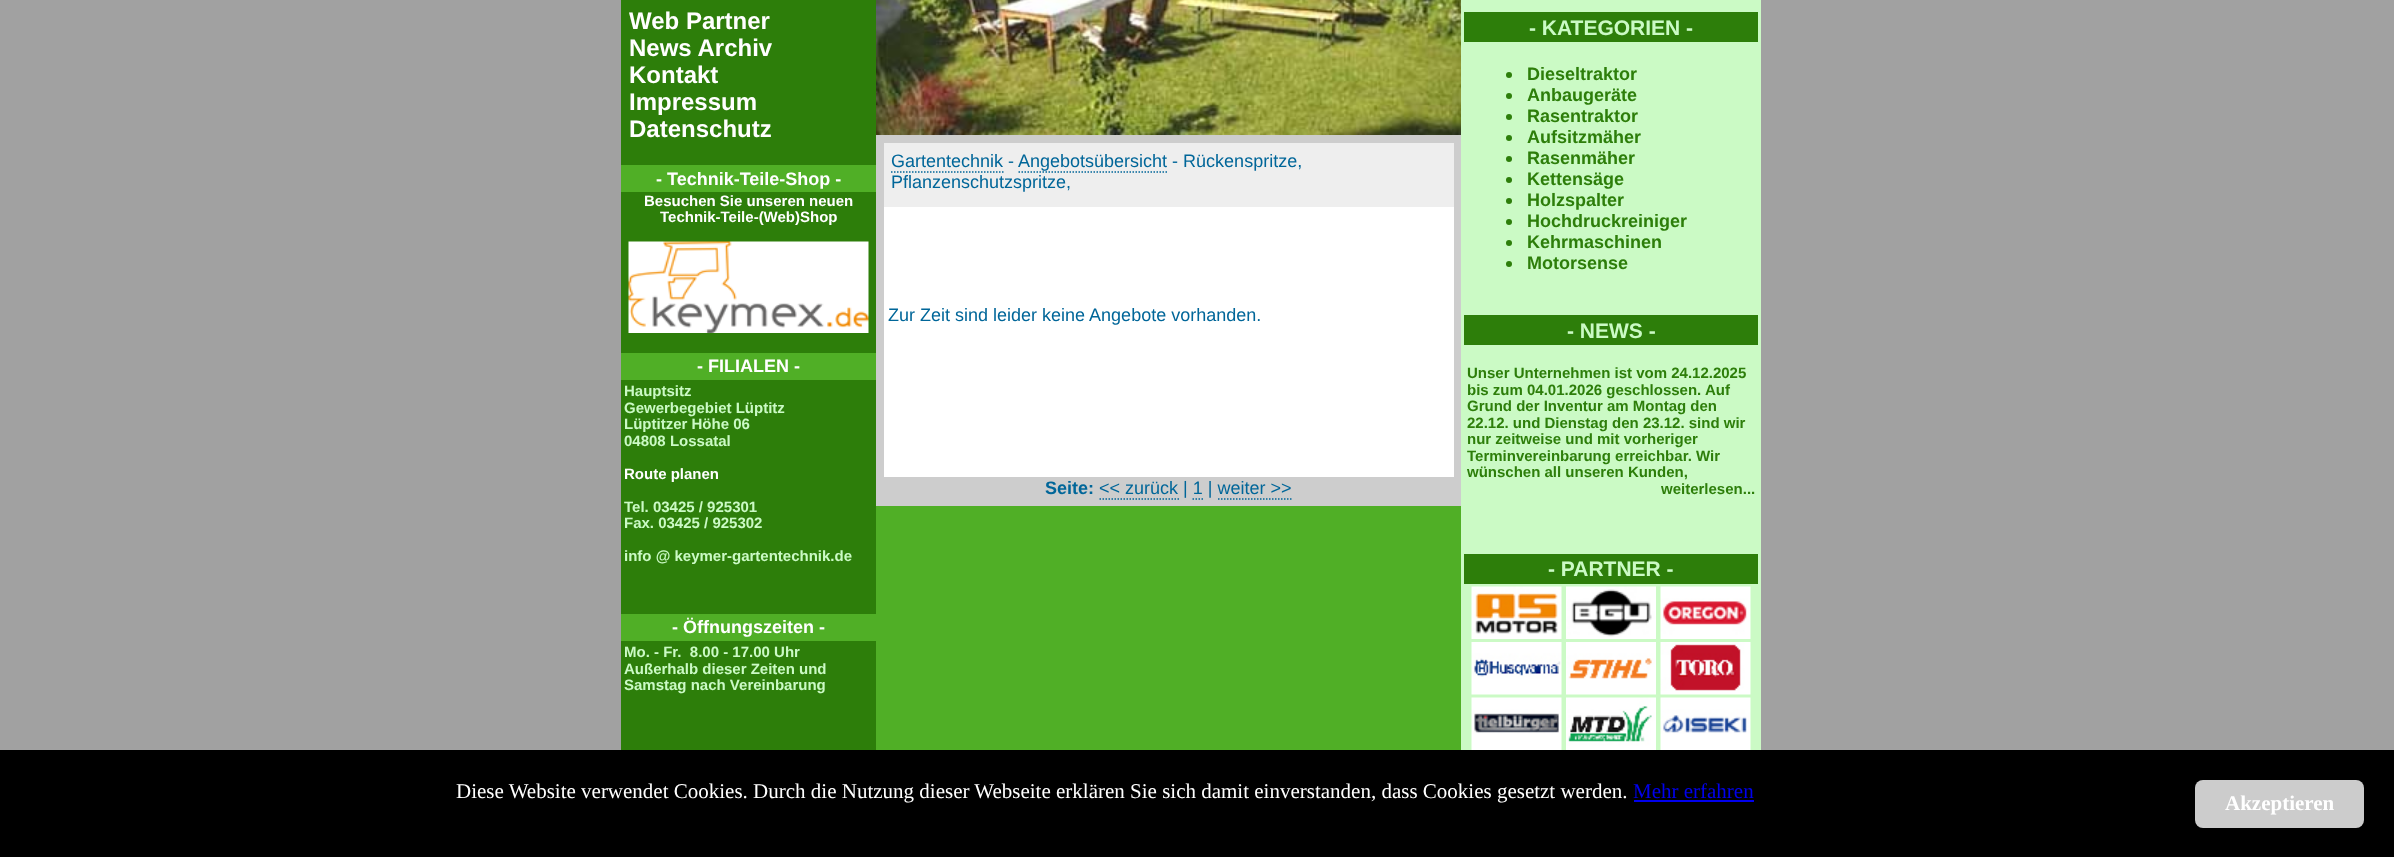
<!DOCTYPE html>
<meta charset="utf-8">
<style>body { margin: 0 } canvas { display: block }</style>
<canvas id="canvas" width="2394" height="857"></canvas>
<img id="img1" src="img_01.png" hidden>
<img id="img2" src="img_02.png" hidden>
<img id="img3" src="img_03.png" hidden>
<img id="img4" src="img_04.png" hidden>
<img id="img5" src="img_05.png" hidden>
<img id="img6" src="img_06.png" hidden>
<img id="img7" src="img_07.png" hidden>
<img id="img8" src="img_08.png" hidden>
<img id="img9" src="img_09.png" hidden>
<img id="img10" src="img_10.png" hidden>
<img id="img11" src="img_11.png" hidden>
<script>
window.onload = function () {
	const canvas = document.getElementById("canvas");
	const ctx = canvas.getContext("2d");
	ctx.miterLimit = 4;
	ctx.fontKerning = "normal";
	function txt(s, x, y) {
		ctx.fillText(s, x, y);
	}
	function fill(x, y, w, h) {
		ctx.fillRect(x, y, w, h);
	}
	function round(x, y, w, h, r) {
		ctx.beginPath();
		ctx.roundRect(x, y, w, h, r);
		ctx.fill();
	}
	function img(id, x, y, w, h) {
		ctx.drawImage(document.getElementById(id), x, y, w, h);
	}

	ctx.fillStyle = "#A1A1A1";
	fill(0, 0, 2394, 857);
	ctx.fillStyle = "#2D7E0A";
	fill(621, 0, 255, 750);
	ctx.fillStyle = "#50AF26";
	fill(621, 165, 255, 27);
	img("img1", 628, 241, 241, 92);
	fill(621, 353, 255, 27);
	fill(621, 614, 255, 27);
	fill(876, 506, 585, 244);
	ctx.fillStyle = "#CDCDCD";
	fill(876, 135, 585, 371);
	img("img2", 876, 0, 585, 135);
	ctx.fillStyle = "#EEEEEE";
	fill(884, 143, 570, 64);
	ctx.beginPath();
	ctx.moveTo(891, 172);
	ctx.lineTo(1003.5, 172);
	ctx.strokeStyle = "#006699";
	ctx.lineWidth = 1.5;
	ctx.setLineDash([1.5, 1.5]);
	ctx.stroke();
	ctx.beginPath();
	ctx.moveTo(1018.5, 172);
	ctx.lineTo(1167, 172);
	ctx.stroke();
	ctx.fillStyle = "#FFFFFF";
	fill(884, 207, 570, 270);
	ctx.beginPath();
	ctx.moveTo(1099.5, 499);
	ctx.lineTo(1179, 499);
	ctx.stroke();
	ctx.beginPath();
	ctx.moveTo(1192.5, 499);
	ctx.lineTo(1194, 499);
	ctx.moveTo(1195.5, 499);
	ctx.lineTo(1197, 499);
	ctx.moveTo(1198.5, 499);
	ctx.lineTo(1200, 499);
	ctx.moveTo(1201.5, 499);
	ctx.lineTo(1203, 499);
	ctx.setLineDash([]);
	ctx.stroke();
	ctx.beginPath();
	ctx.moveTo(1218, 499);
	ctx.lineTo(1291.5, 499);
	ctx.setLineDash([1.5, 1.5]);
	ctx.stroke();
	ctx.fillStyle = "#CBFAC5";
	fill(1461, 0, 300, 750);
	ctx.fillStyle = "#2D7E0A";
	fill(1464, 12, 294, 30);
	ctx.beginPath();
	ctx.arc(1509, 75, 3, 0, Math.PI * 2);
	ctx.fill();
	ctx.beginPath();
	ctx.arc(1509, 96, 3, 0, Math.PI * 2);
	ctx.fill();
	ctx.beginPath();
	ctx.arc(1509, 117, 3, 0, Math.PI * 2);
	ctx.fill();
	ctx.beginPath();
	ctx.arc(1509, 138, 3, 0, Math.PI * 2);
	ctx.fill();
	ctx.beginPath();
	ctx.arc(1509, 159, 3, 0, Math.PI * 2);
	ctx.fill();
	ctx.beginPath();
	ctx.arc(1509, 180, 3, 0, Math.PI * 2);
	ctx.fill();
	ctx.beginPath();
	ctx.arc(1509, 201, 3, 0, Math.PI * 2);
	ctx.fill();
	ctx.beginPath();
	ctx.arc(1509, 222, 3, 0, Math.PI * 2);
	ctx.fill();
	ctx.beginPath();
	ctx.arc(1509, 243, 3, 0, Math.PI * 2);
	ctx.fill();
	ctx.beginPath();
	ctx.arc(1509, 264, 3, 0, Math.PI * 2);
	ctx.fill();
	fill(1464, 315, 294, 30);
	fill(1464, 554, 294, 30);
	img("img3", 1471, 586, 91, 53);
	img("img4", 1566, 586, 90, 53);
	img("img5", 1660, 586, 91, 53);
	img("img6", 1471, 642, 91, 53);
	img("img7", 1566, 642, 90, 53);
	img("img8", 1660, 642, 91, 53);
	img("img9", 1471, 697, 91, 53);
	img("img10", 1566, 697, 90, 53);
	img("img11", 1660, 697, 91, 53);
	ctx.fillStyle = "#000000";
	fill(0, 750, 2394, 107);
	ctx.fillStyle = "#0000EE";
	fill(1634, 800, 120, 2);
	ctx.fillStyle = "#CCCCCC";
	round(2195, 780, 169, 48, 8);
	ctx.font = "bold 24px Liberation Sans";
	ctx.fillStyle = "#FFFFFF";
	txt("Web Partner", 629, 29);
	txt("News Archiv", 629, 56);
	txt("Kontakt", 629, 83);
	txt("Impressum", 629, 110);
	txt("Datenschutz", 629, 137);
	ctx.font = "bold 18px Liberation Sans";
	txt("- Technik-Teile-Shop -", 656, 185);
	ctx.font = "bold 15px Liberation Sans";
	txt("Besuchen Sie unseren neuen", 644, 206);
	txt("Technik-Teile-(Web)Shop", 660, 222);
	ctx.font = "bold 18px Liberation Sans";
	txt("- FILIALEN -", 697, 372);
	ctx.font = "bold 15px Liberation Sans";
	ctx.fillStyle = "#CBFAC5";
	txt("Hauptsitz", 624, 396);
	txt("Gewerbegebiet Lüptitz", 624, 413);
	txt("Lüptitzer Höhe 06", 624, 429);
	txt("04808 Lossatal", 624, 446);
	ctx.fillStyle = "#FFFFFF";
	txt("Route planen", 624, 479);
	ctx.fillStyle = "#CBFAC5";
	txt("Tel. 03425 / 925301", 624, 512);
	txt("Fax. 03425 / 925302", 624, 528);
	txt("info @ keymer-gartentechnik.de", 624, 561);
	ctx.font = "bold 18px Liberation Sans";
	ctx.fillStyle = "#FFFFFF";
	txt("- Öffnungszeiten -", 672, 633);
	ctx.font = "bold 15px Liberation Sans";
	ctx.fillStyle = "#CBFAC5";
	txt("Mo. - Fr.  8.00 - 17.00 Uhr", 624, 657);
	txt("Außerhalb dieser Zeiten und", 624, 674);
	txt("Samstag nach Vereinbarung", 624, 690);
	ctx.font = "18px Liberation Sans";
	ctx.fillStyle = "#006699";
	txt("Gartentechnik", 891, 167);
	txt("-", 1008, 167);
	txt("Angebotsübersicht - Rückenspritze,", 1018, 167);
	txt("Pflanzenschutzspritze,", 891, 188);
	txt("Zur Zeit sind leider keine Angebote vorhanden.", 888, 321);
	ctx.font = "bold 18px Liberation Sans";
	txt("Seite:", 1045, 494);
	ctx.font = "18px Liberation Sans";
	txt("<< zurück | 1 | weiter >>", 1099, 494);
	ctx.font = "bold 21px Liberation Sans";
	ctx.fillStyle = "#CBFAC5";
	txt("- KATEGORIEN -", 1529, 35);
	ctx.font = "bold 18px Liberation Sans";
	ctx.fillStyle = "#2D7E0A";
	txt("Dieseltraktor", 1527, 80);
	txt("Anbaugeräte", 1527, 101);
	txt("Rasentraktor", 1527, 122);
	txt("Aufsitzmäher", 1527, 143);
	txt("Rasenmäher", 1527, 164);
	txt("Kettensäge", 1527, 185);
	txt("Holzspalter", 1527, 206);
	txt("Hochdruckreiniger", 1527, 227);
	txt("Kehrmaschinen", 1527, 248);
	txt("Motorsense", 1527, 269);
	ctx.font = "bold 21px Liberation Sans";
	ctx.fillStyle = "#CBFAC5";
	txt("- NEWS -", 1567, 338);
	ctx.font = "bold 15px Liberation Sans";
	ctx.fillStyle = "#2D7E0A";
	txt("Unser Unternehmen ist vom 24.12.2025", 1467, 378);
	txt("bis zum 04.01.2026 geschlossen. Auf", 1467, 395);
	txt("Grund der Inventur am Montag den", 1467, 411);
	txt("22.12. und Dienstag den 23.12. sind wir", 1467, 428);
	txt("nur zeitweise und mit vorheriger", 1467, 444);
	txt("Terminvereinbarung erreichbar. Wir", 1467, 461);
	txt("wünschen all unseren Kunden,", 1467, 477);
	txt("weiterlesen...", 1661, 494);
	ctx.font = "bold 21px Liberation Sans";
	ctx.fillStyle = "#CBFAC5";
	txt("- PARTNER -", 1548, 576);
	ctx.font = "21px Liberation Serif";
	ctx.fillStyle = "#FFFFFF";
	txt("Diese Website verwendet Cookies. Durch die Nutzung dieser Webseite erklären Sie sich damit einverstanden, dass Cookies gesetzt werden.", 456, 798);
	ctx.fillStyle = "#0000EE";
	txt("Mehr erfahren", 1633, 798);
	ctx.font = "bold 21px Liberation Serif";
	ctx.fillStyle = "#FFFFFF";
	txt("Akzeptieren", 2225, 810);
};
</script>
